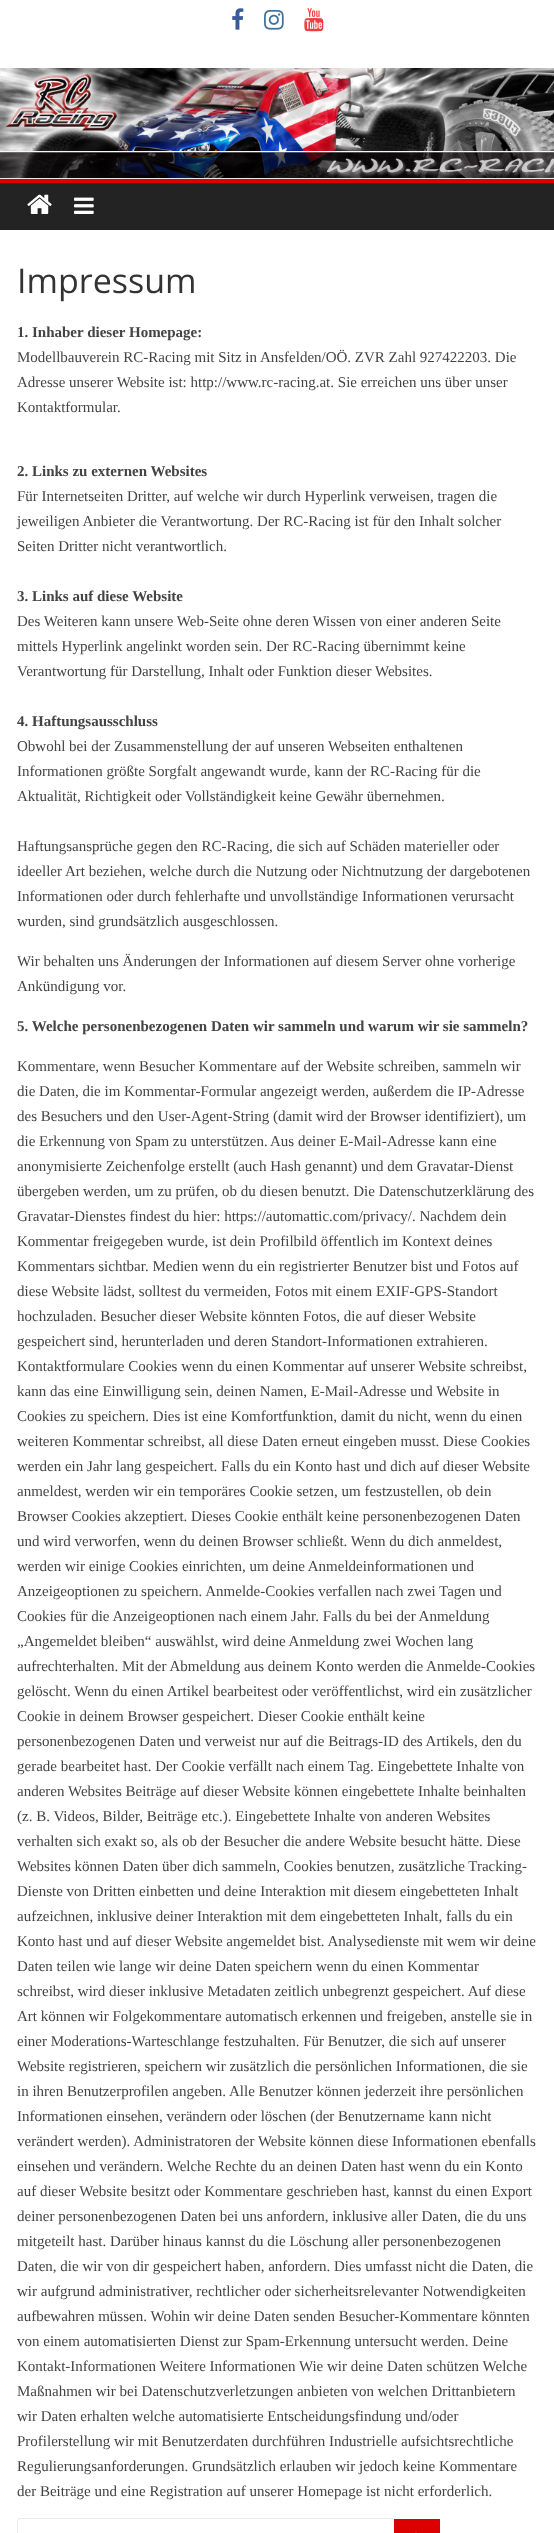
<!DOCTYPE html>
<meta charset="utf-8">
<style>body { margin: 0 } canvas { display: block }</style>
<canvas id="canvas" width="554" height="2533"></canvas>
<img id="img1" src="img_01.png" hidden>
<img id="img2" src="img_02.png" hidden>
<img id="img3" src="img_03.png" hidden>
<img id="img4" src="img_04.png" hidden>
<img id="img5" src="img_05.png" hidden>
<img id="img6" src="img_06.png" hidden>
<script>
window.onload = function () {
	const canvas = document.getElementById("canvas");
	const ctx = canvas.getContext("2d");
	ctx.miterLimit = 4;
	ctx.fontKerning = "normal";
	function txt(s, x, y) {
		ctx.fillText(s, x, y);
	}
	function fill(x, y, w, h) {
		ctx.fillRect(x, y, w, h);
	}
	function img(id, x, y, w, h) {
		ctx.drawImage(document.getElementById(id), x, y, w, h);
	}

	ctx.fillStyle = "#FFFFFF";
	fill(0, 0, 554, 2533);
	img("img1", 232, 8, 12, 22);
	img("img2", 264, 9, 20, 21);
	img("img3", 304, 8, 20, 24);
	img("img4", 0, 68, 554, 110);
	ctx.fillStyle = "#EAEAEA";
	fill(0, 178, 554, 1);
	ctx.fillStyle = "#232323";
	fill(0, 183, 554, 47);
	ctx.fillStyle = "#DD0000";
	fill(0, 179, 554, 4);
	img("img5", 27, 194, 25, 20);
	img("img6", 74, 197, 20, 17);
	ctx.beginPath();
	ctx.roundRect(17.5, 2518.5, 377, 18, 2.5);
	ctx.strokeStyle = "#EAEAEA";
	ctx.stroke();
	fill(394, 2519, 46, 14);
	ctx.fillStyle = "#E01A1A";
	fill(415, 2532, 2, 1);
	ctx.font = "34px Open Sans";
	ctx.fillStyle = "#333333";
	txt("Impressum", 17, 293);
	ctx.font = "bold 15px Liberation Serif";
	ctx.fillStyle = "#444444";
	txt("1. Inhaber dieser Homepage:", 17, 337);
	ctx.font = "15px Liberation Serif";
	txt("Modellbauverein RC-Racing mit Sitz in Ansfelden/OÖ. ZVR Zahl 927422203. Die", 17, 362);
	txt("Adresse unserer Website ist: http://www.rc-racing.at. Sie erreichen uns über unser", 17, 387);
	txt("Kontaktformular.", 17, 412);
	ctx.font = "bold 15px Liberation Serif";
	txt("2. Links zu externen Websites", 17, 476);
	ctx.font = "15px Liberation Serif";
	txt("Für Internetseiten Dritter, auf welche wir durch Hyperlink verweisen, tragen die", 17, 501);
	txt("jeweiligen Anbieter die Verantwortung. Der RC-Racing ist für den Inhalt solcher", 17, 526);
	txt("Seiten Dritter nicht verantwortlich.", 17, 551);
	ctx.font = "bold 15px Liberation Serif";
	txt("3. Links auf diese Website", 17, 601);
	ctx.font = "15px Liberation Serif";
	txt("Des Weiteren kann unsere Web-Seite ohne deren Wissen von einer anderen Seite", 17, 626);
	txt("mittels Hyperlink angelinkt worden sein. Der RC-Racing übernimmt keine", 17, 651);
	txt("Verantwortung für Darstellung, Inhalt oder Funktion dieser Websites.", 17, 676);
	ctx.font = "bold 15px Liberation Serif";
	txt("4. Haftungsausschluss", 17, 726);
	ctx.font = "15px Liberation Serif";
	txt("Obwohl bei der Zusammenstellung der auf unseren Webseiten enthaltenen", 17, 751);
	txt("Informationen größte Sorgfalt angewandt wurde, kann der RC-Racing für die", 17, 776);
	txt("Aktualität, Richtigkeit oder Vollständigkeit keine Gewähr übernehmen.", 17, 801);
	txt("Haftungsansprüche gegen den RC-Racing, die sich auf Schäden materieller oder", 17, 851);
	txt("ideeller Art beziehen, welche durch die Nutzung oder Nichtnutzung der dargebotenen", 17, 876);
	txt("Informationen oder durch fehlerhafte und unvollständige Informationen verursacht", 17, 901);
	txt("wurden, sind grundsätzlich ausgeschlossen.", 17, 926);
	txt("Wir behalten uns Änderungen der Informationen auf diesem Server ohne vorherige", 17, 966);
	txt("Ankündigung vor.", 17, 991);
	ctx.font = "bold 15px Liberation Serif";
	txt("5. Welche personenbezogenen Daten wir sammeln und warum wir sie sammeln?", 17, 1031);
	ctx.font = "15px Liberation Serif";
	txt("Kommentare, wenn Besucher Kommentare auf der Website schreiben, sammeln wir", 17, 1071);
	txt("die Daten, die im Kommentar-Formular angezeigt werden, außerdem die IP-Adresse", 17, 1096);
	txt("des Besuchers und den User-Agent-String (damit wird der Browser identifiziert), um", 17, 1121);
	txt("die Erkennung von Spam zu unterstützen.", 17, 1146);
	txt("Aus deiner E-Mail-Adresse kann eine", 270, 1146);
	txt("anonymisierte Zeichenfolge erstellt (auch Hash genannt) und dem Gravatar-Dienst", 17, 1171);
	txt("übergeben werden, um zu prüfen, ob du diesen benutzt. Die Datenschutzerklärung des", 17, 1196);
	txt("Gravatar-Dienstes findest du hier: https://automattic.com/privacy/. Nachdem dein", 17, 1221);
	txt("Kommentar freigegeben wurde, ist dein Profilbild öffentlich im Kontext deines", 17, 1246);
	txt("Kommentars sichtbar. Medien wenn du ein registrierter Benutzer bist und Fotos auf", 17, 1271);
	txt("diese Website lädst, solltest du vermeiden, Fotos mit einem EXIF-GPS-Standort", 17, 1296);
	txt("hochzuladen. Besucher dieser Website könnten Fotos, die auf dieser Website", 17, 1321);
	txt("gespeichert sind, herunterladen und deren Standort-Informationen extrahieren.", 17, 1346);
	txt("Kontaktformulare Cookies wenn du einen Kommentar auf unserer Website schreibst,", 17, 1371);
	txt("kann das eine Einwilligung sein, deinen Namen, E-Mail-Adresse und Website in", 17, 1396);
	txt("Cookies zu speichern. Dies ist eine Komfortfunktion, damit du nicht, wenn du einen", 17, 1421);
	txt("weiteren Kommentar schreibst, all diese Daten erneut eingeben musst. Diese Cookies", 17, 1446);
	txt("werden ein Jahr lang gespeichert. Falls du ein Konto hast und dich auf dieser Website", 17, 1471);
	txt("anmeldest, werden wir ein temporäres Cookie setzen, um festzustellen, ob dein", 17, 1496);
	txt("Browser Cookies akzeptiert. Dieses Cookie enthält keine personenbezogenen Daten", 17, 1521);
	txt("und wird verworfen, wenn du deinen Browser schließt. Wenn du dich anmeldest,", 17, 1546);
	txt("werden wir einige Cookies einrichten, um deine Anmeldeinformationen und", 17, 1571);
	txt("Anzeigeoptionen zu speichern. Anmelde-Cookies verfallen nach zwei Tagen und", 17, 1596);
	txt("Cookies für die Anzeigeoptionen nach einem Jahr. Falls du bei der Anmeldung", 17, 1621);
	txt("„Angemeldet bleiben“ auswählst, wird deine Anmeldung zwei Wochen lang", 17, 1646);
	txt("aufrechterhalten. Mit der Abmeldung aus deinem Konto werden die Anmelde-Cookies", 17, 1671);
	txt("gelöscht. Wenn du einen Artikel bearbeitest oder veröffentlichst, wird ein zusätzlicher", 17, 1696);
	txt("Cookie in deinem Browser gespeichert. Dieser Cookie enthält keine", 17, 1721);
	txt("personenbezogenen Daten und verweist nur auf die Beitrags-ID des Artikels, den du", 17, 1746);
	txt("gerade bearbeitet hast. Der Cookie verfällt nach einem Tag. Eingebettete Inhalte von", 17, 1771);
	txt("anderen Websites Beiträge auf dieser Website können eingebettete Inhalte beinhalten", 17, 1796);
	txt("(z. B. Videos, Bilder, Beiträge etc.). Eingebettete Inhalte von anderen Websites", 17, 1821);
	txt("verhalten sich exakt so, als ob der Besucher die andere Website besucht hätte. Diese", 17, 1846);
	txt("Websites können Daten über dich sammeln, Cookies benutzen, zusätzliche Tracking-", 17, 1871);
	txt("Dienste von Dritten einbetten und deine Interaktion mit diesem eingebetteten Inhalt", 17, 1896);
	txt("aufzeichnen, inklusive deiner Interaktion mit dem eingebetteten Inhalt, falls du ein", 17, 1921);
	txt("Konto hast und auf dieser Website angemeldet bist. Analysedienste mit wem wir deine", 17, 1946);
	txt("Daten teilen wie lange wir deine Daten speichern wenn du einen Kommentar", 17, 1971);
	txt("schreibst, wird dieser inklusive Metadaten zeitlich unbegrenzt gespeichert. Auf diese", 17, 1996);
	txt("Art können wir Folgekommentare automatisch erkennen und freigeben, anstelle sie in", 17, 2021);
	txt("einer Moderations-Warteschlange festzuhalten. Für Benutzer, die sich auf unserer", 17, 2046);
	txt("Website registrieren, speichern wir zusätzlich die persönlichen Informationen, die sie", 17, 2071);
	txt("in ihren Benutzerprofilen angeben. Alle Benutzer können jederzeit ihre persönlichen", 17, 2096);
	txt("Informationen einsehen, verändern oder löschen (der Benutzername kann nicht", 17, 2121);
	txt("verändert werden). Administratoren der Website können diese Informationen ebenfalls", 17, 2146);
	txt("einsehen und verändern. Welche Rechte du an deinen Daten hast wenn du ein Konto", 17, 2171);
	txt("auf dieser Website besitzt oder Kommentare geschrieben hast, kannst du einen Export", 17, 2196);
	txt("deiner personenbezogenen Daten bei uns anfordern, inklusive aller Daten, die du uns", 17, 2221);
	txt("mitgeteilt hast. Darüber hinaus kannst du die Löschung aller personenbezogenen", 17, 2246);
	txt("Daten, die wir von dir gespeichert haben, anfordern. Dies umfasst nicht die Daten, die", 17, 2271);
	txt("wir aufgrund administrativer, rechtlicher oder sicherheitsrelevanter Notwendigkeiten", 17, 2296);
	txt("aufbewahren müssen. Wohin wir deine Daten senden Besucher-Kommentare könnten", 17, 2321);
	txt("von einem automatisierten Dienst zur Spam-Erkennung untersucht werden. Deine", 17, 2346);
	txt("Kontakt-Informationen Weitere Informationen Wie wir deine Daten schützen Welche", 17, 2371);
	txt("Maßnahmen wir bei Datenschutzverletzungen anbieten von welchen Drittanbietern", 17, 2396);
	txt("wir Daten erhalten welche automatisierte Entscheidungsfindung und/oder", 17, 2421);
	txt("Profilerstellung wir mit Benutzerdaten durchführen Industrielle aufsichtsrechtliche", 17, 2446);
	txt("Regulierungsanforderungen. Grundsätzlich erlauben wir jedoch keine Kommentare", 17, 2471);
	txt("der Beiträge und eine Registration auf unserer Homepage ist nicht erforderlich.", 17, 2496);
};
</script>
